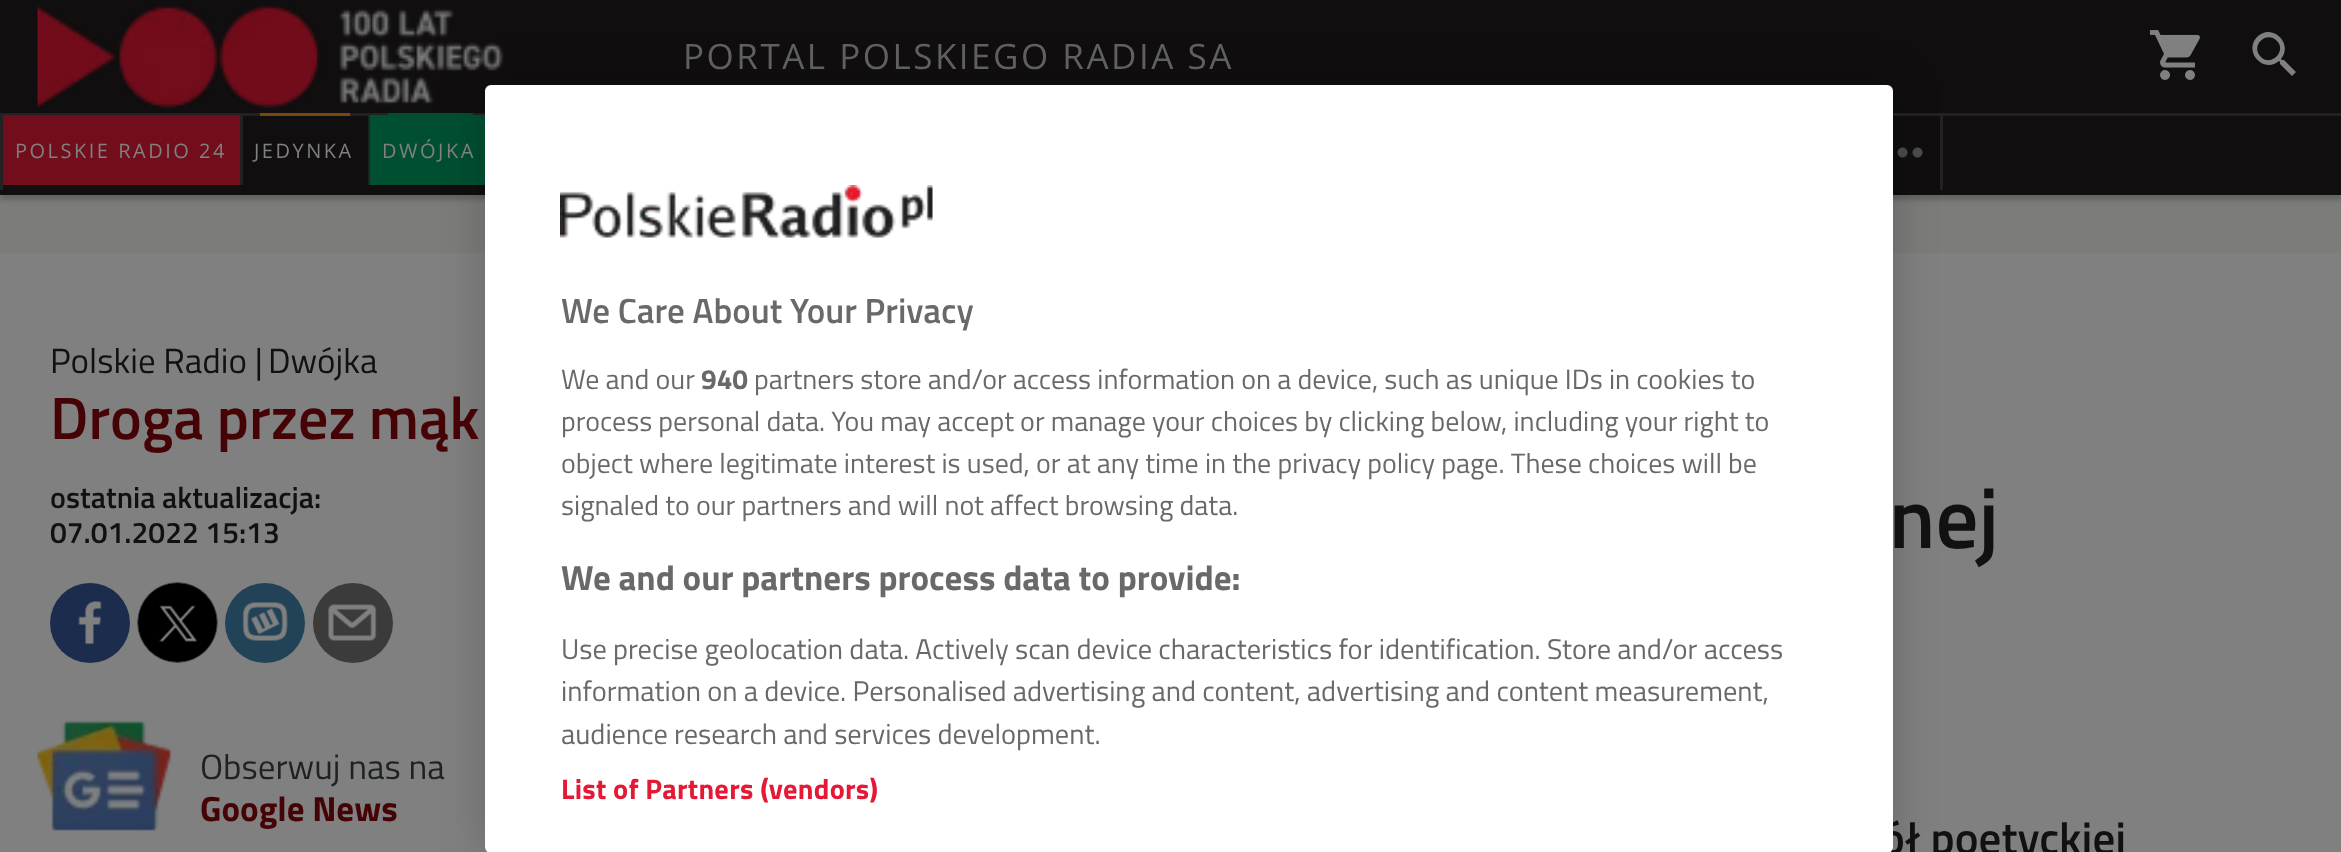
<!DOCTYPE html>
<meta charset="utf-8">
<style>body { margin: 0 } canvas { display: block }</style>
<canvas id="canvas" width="2341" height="852"></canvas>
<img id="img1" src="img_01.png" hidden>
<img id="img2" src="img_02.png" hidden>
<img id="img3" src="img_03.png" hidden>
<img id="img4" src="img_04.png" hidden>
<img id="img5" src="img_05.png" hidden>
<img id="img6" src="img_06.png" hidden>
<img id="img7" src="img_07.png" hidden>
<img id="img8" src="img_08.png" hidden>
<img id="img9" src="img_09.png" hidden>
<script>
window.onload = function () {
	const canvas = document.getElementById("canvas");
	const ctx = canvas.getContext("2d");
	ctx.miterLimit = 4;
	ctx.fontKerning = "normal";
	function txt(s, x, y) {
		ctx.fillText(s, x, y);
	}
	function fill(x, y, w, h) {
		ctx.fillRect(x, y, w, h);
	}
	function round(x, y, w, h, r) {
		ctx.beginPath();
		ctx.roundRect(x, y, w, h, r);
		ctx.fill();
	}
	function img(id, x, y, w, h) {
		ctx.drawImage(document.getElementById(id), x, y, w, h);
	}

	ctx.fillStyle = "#7C7C7A";
	fill(0, 0, 2341, 852);
	ctx.fillStyle = "rgba(0, 0, 0, 0.2)";
	ctx.filter = "blur(2.5px)";
	ctx.beginPath();
	ctx.rect(0, 5, 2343, 195);
	ctx.fill();
	ctx.filter = "none";
	ctx.fillStyle = "#100E0E";
	fill(0, 0, 2341, 195);
	ctx.fillStyle = "#222222";
	fill(0, 113, 2341, 3);
	img("img1", 37, 5, 468, 103);
	img("img2", 2149, 30, 51, 50);
	ctx.fillStyle = "#808080";
	ctx.beginPath();
	ctx.moveTo(2261, 57);
	ctx.bezierCurveTo(2271, 67, 2287, 51, 2277, 41);
	ctx.bezierCurveTo(2266, 30, 2250, 46, 2261, 57);
	ctx.closePath();
	ctx.moveTo(2284, 60);
	ctx.lineTo(2296, 72);
	ctx.lineTo(2292, 76);
	ctx.lineTo(2280, 64);
	ctx.lineTo(2280, 62);
	ctx.lineTo(2279, 61);
	ctx.bezierCurveTo(2264, 74, 2243, 52, 2257, 37);
	ctx.bezierCurveTo(2272, 22, 2294, 44, 2281, 59);
	ctx.lineTo(2282, 60);
	ctx.closePath();
	ctx.fill();
	ctx.fillStyle = "#222222";
	fill(0, 115, 3, 75);
	ctx.fillStyle = "#720D1B";
	fill(3, 115, 237, 70);
	ctx.fillStyle = "#222222";
	fill(240, 115, 3, 70);
	fill(368, 115, 2, 70);
	ctx.fillStyle = "#7B470F";
	fill(260, 113, 90, 3);
	ctx.fillStyle = "#004F31";
	fill(370, 115, 115, 70);
	fill(388, 113, 85, 2);
	ctx.fillStyle = "#222222";
	fill(1940, 115, 3, 75);
	img("img3", 1897, 147, 26, 11);
	ctx.fillStyle = "#808080";
	fill(0, 253, 2341, 599);
	ctx.fillStyle = "#1B2C4D";
	ctx.beginPath();
	ctx.arc(90, 623, 40, 0, Math.PI * 2);
	ctx.fill();
	img("img4", 78, 601, 24, 44);
	img("img5", 137, 582, 81, 81);
	ctx.fillStyle = "#224258";
	ctx.beginPath();
	ctx.arc(265, 623, 40, 0, Math.PI * 2);
	ctx.fill();
	img("img6", 242, 602, 46, 39);
	ctx.fillStyle = "#3B3B3B";
	ctx.beginPath();
	ctx.arc(353, 623, 40, 0, Math.PI * 2);
	ctx.fill();
	img("img7", 328, 604, 49, 37);
	img("img8", 37, 720, 135, 111);
	ctx.fillStyle = "rgba(0, 0, 0, 0.2)";
	ctx.filter = "blur(22.5px)";
	ctx.beginPath();
	ctx.roundRect(485, 85, 1408, 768, 6);
	ctx.fill();
	ctx.filter = "none";
	ctx.letterSpacing = "2.5px";
	ctx.font = "35px Open Sans";
	ctx.fillStyle = "#606060";
	txt("PORTAL POLSKIEGO RADIA SA", 683, 69);
	ctx.font = "20px Open Sans";
	ctx.fillStyle = "#808080";
	txt("POLSKIE RADIO 24", 15, 158);
	txt("JEDYNKA", 254, 158);
	txt("DWÓJKA", 382, 158);
	ctx.letterSpacing = "0px";
	ctx.font = "35px Titillium Web";
	ctx.fillStyle = "#111111";
	txt("Polskie Radio |", 50, 373);
	txt("Dwójka", 268, 373);
	ctx.font = "600 60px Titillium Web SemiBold";
	ctx.fillStyle = "#460306";
	txt("Droga przez mąk", 50, 439);
	ctx.font = "600 30px Titillium Web SemiBold";
	ctx.fillStyle = "#111111";
	txt("ostatnia aktualizacja:", 50, 508);
	txt("07.01.2022 15:13", 50, 543);
	ctx.font = "600 85px Titillium Web SemiBold";
	txt("nej", 1889, 548);
	ctx.font = "35px Titillium Web";
	ctx.fillStyle = "#1E2224";
	txt("Obserwuj nas na", 200, 779);
	ctx.font = "bold 35px Titillium Web";
	ctx.fillStyle = "#460306";
	txt("Google News", 200, 821);
	ctx.font = "600 45px Titillium Web SemiBold";
	ctx.fillStyle = "#111111";
	txt("ół poetyckiej", 1881, 854);
	ctx.fillStyle = "#FFFFFF";
	round(485, 85, 1408, 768, 6);
	img("img9", 560, 185, 373, 53);
	ctx.font = "600 35px Titillium Web SemiBold";
	ctx.fillStyle = "#696969";
	txt("We Care About Your Privacy", 561, 323);
	ctx.font = "28px Titillium Web";
	txt("We and our", 561, 389);
	ctx.font = "bold 28px Titillium Web";
	txt("940", 701, 389);
	ctx.font = "28px Titillium Web";
	txt("partners store and/or access information on a device, such as unique IDs in cookies to", 754, 389);
	txt("process personal data. You may accept or manage your choices by clicking below, including your right to", 561, 431);
	txt("object where legitimate interest is used, or at any time in the privacy policy page. These choices will be", 561, 473);
	txt("signaled to our partners and will not affect browsing data.", 561, 515);
	ctx.font = "bold 35px Titillium Web";
	txt("We and our partners process data to provide:", 561, 590);
	ctx.font = "28.45px Titillium Web";
	txt("Use precise geolocation data. Actively scan device characteristics for identification. Store and/or access", 561, 659);
	txt("information on a device. Personalised advertising and content, advertising and content measurement,", 561, 701);
	txt("audience research and services development.", 561, 744);
	ctx.letterSpacing = "0.25px";
	ctx.font = "bold 28.45px Titillium Web";
	ctx.fillStyle = "#E31936";
	txt("List of Partners (vendors)", 561, 799);
};
</script>
